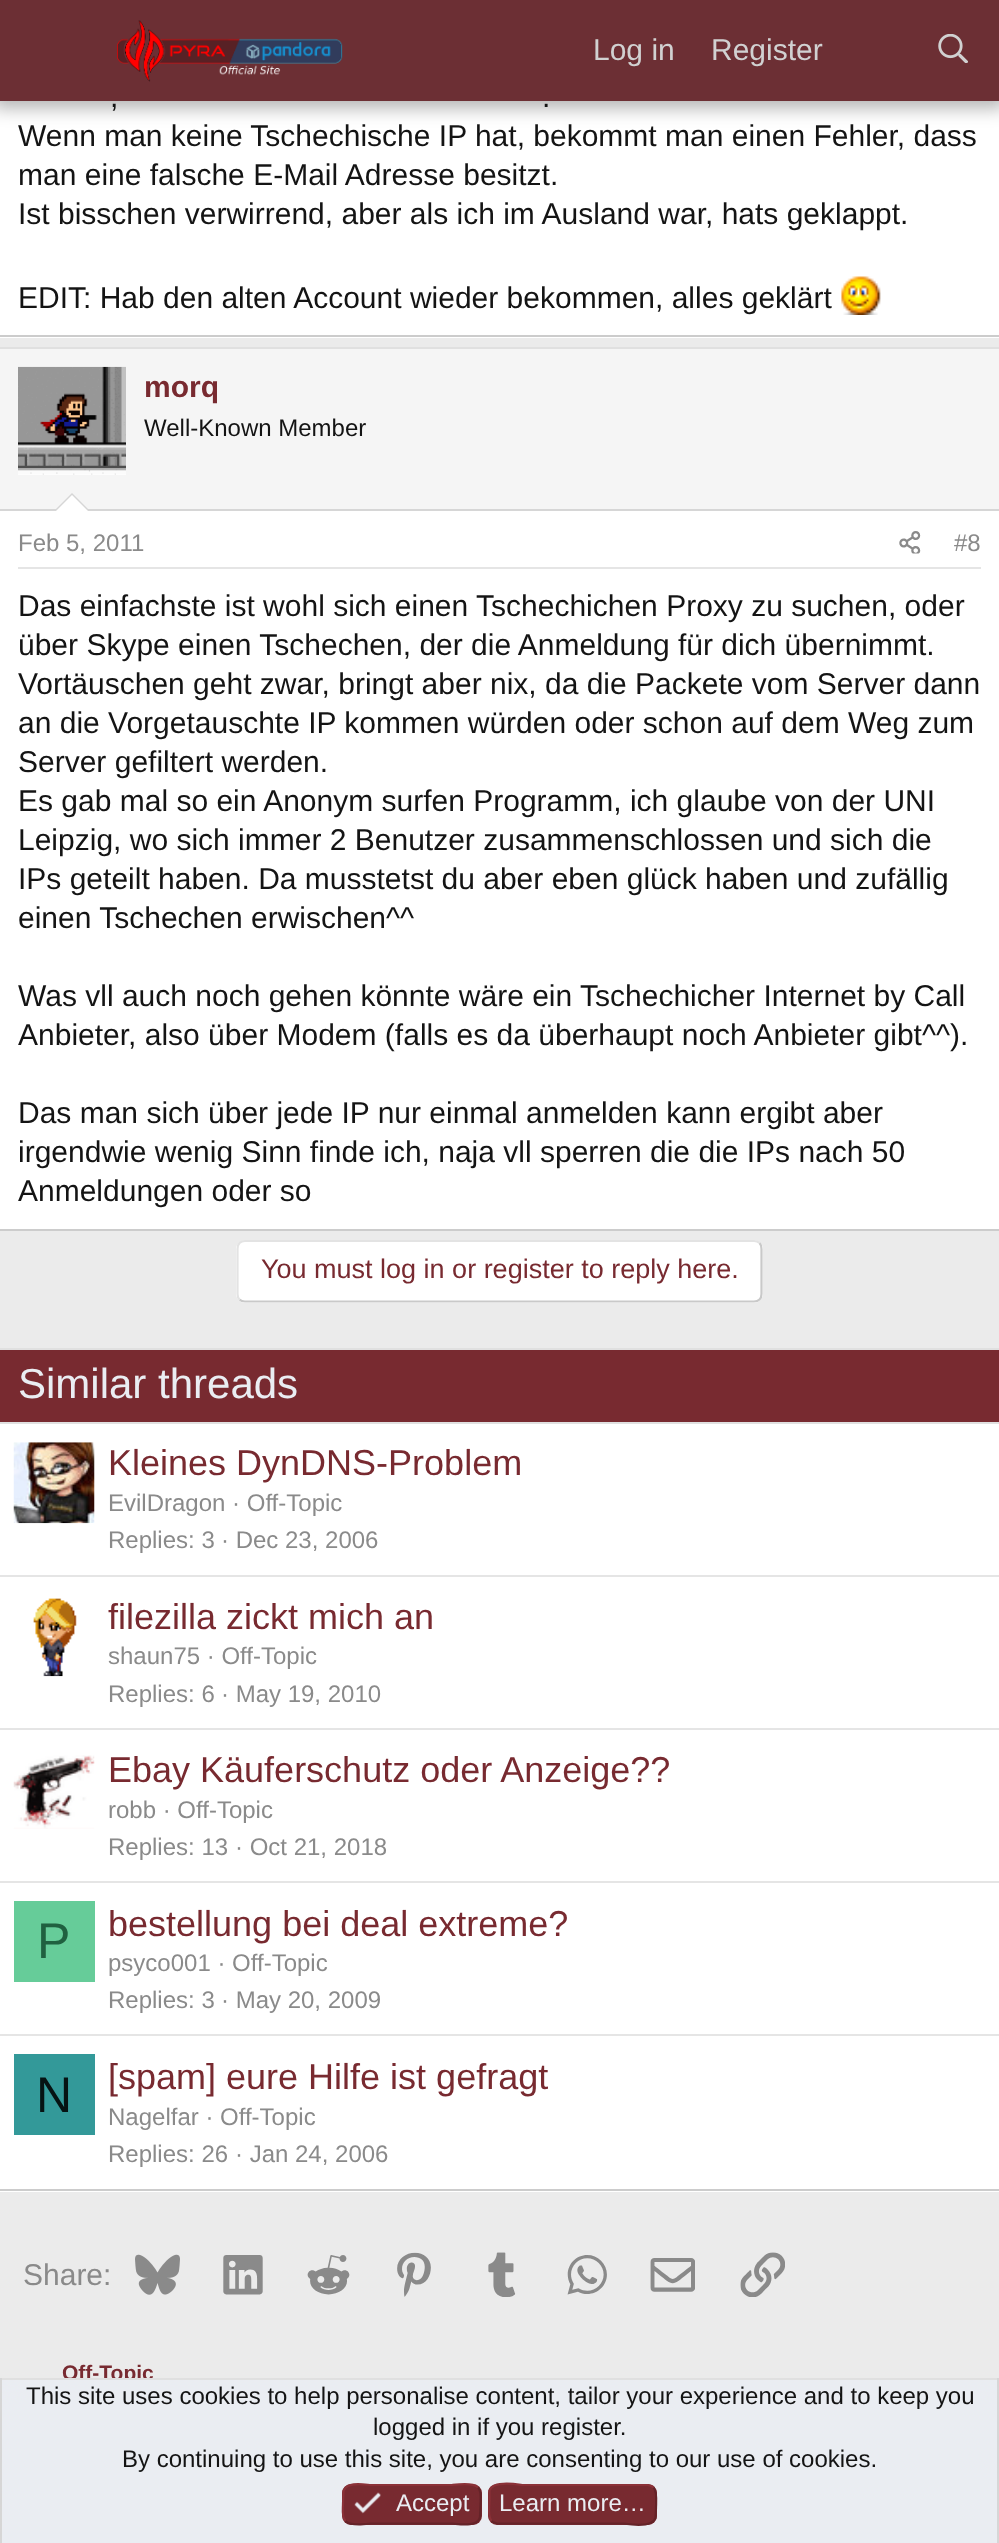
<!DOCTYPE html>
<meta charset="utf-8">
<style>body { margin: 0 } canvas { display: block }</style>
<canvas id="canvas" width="999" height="2543"></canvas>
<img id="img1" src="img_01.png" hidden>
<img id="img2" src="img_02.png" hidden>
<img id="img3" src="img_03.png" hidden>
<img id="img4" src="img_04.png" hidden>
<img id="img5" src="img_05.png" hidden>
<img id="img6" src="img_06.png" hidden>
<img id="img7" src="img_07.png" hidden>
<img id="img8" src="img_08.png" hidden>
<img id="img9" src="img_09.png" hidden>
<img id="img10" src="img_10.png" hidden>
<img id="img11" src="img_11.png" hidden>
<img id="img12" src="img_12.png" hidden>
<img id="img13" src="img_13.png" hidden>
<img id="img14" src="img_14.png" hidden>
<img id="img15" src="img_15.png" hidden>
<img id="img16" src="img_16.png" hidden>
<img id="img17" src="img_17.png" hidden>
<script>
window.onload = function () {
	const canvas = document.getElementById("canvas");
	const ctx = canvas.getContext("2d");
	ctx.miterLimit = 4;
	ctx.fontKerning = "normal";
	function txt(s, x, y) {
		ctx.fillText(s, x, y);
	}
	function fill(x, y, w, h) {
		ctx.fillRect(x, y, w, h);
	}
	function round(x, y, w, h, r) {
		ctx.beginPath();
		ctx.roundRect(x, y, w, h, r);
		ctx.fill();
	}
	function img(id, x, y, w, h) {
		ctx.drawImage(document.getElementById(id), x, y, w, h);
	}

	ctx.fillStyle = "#EBEBEB";
	fill(0, 0, 999, 2543);
	ctx.fillStyle = "#FFFFFF";
	fill(0, 101, 999, 237);
	ctx.fillStyle = "rgba(0, 0, 0, 0.3)";
	ctx.filter = "blur(9px)";
	ctx.beginPath();
	ctx.rect(-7, -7, 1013, 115);
	ctx.fill();
	ctx.filter = "none";
	ctx.fillStyle = "#6C2F34";
	fill(0, 0, 999, 101);
	img("img1", 117, 20, 226, 62);
	img("img2", 938, 34, 30, 29);
	ctx.fillStyle = "#CCCCCC";
	fill(0, 335, 999, 2);
	img("img3", 841, 276, 40, 39);
	ctx.fillStyle = "#FFFFFF";
	fill(0, 511, 999, 718);
	ctx.fillStyle = "#E0E0E0";
	fill(0, 347, 999, 2);
	ctx.fillStyle = "#CCCCCC";
	fill(0, 1229, 999, 2);
	ctx.fillStyle = "#F5F5F5";
	fill(0, 349, 999, 160);
	ctx.fillStyle = "#D6D6D6";
	fill(0, 509, 999, 2);
	ctx.fillStyle = "#FFFFFF";
	fill(18, 474, 108, 1);
	img("img4", 18, 366, 108, 109);
	ctx.fillStyle = "#D6D6D6";
	ctx.beginPath();
	ctx.moveTo(90, 511);
	ctx.lineTo(54, 511);
	ctx.lineTo(72, 493);
	ctx.closePath();
	ctx.fill();
	ctx.fillStyle = "#FFFFFF";
	ctx.beginPath();
	ctx.moveTo(88, 511);
	ctx.lineTo(56, 511);
	ctx.lineTo(72, 495);
	ctx.closePath();
	ctx.fill();
	ctx.fillStyle = "#E5E5E5";
	fill(18, 567, 963, 2);
	img("img5", 899, 531, 22, 23);
	ctx.fillStyle = "#FFFFFF";
	round(236, 1240, 527, 63, 9);
	ctx.beginPath();
	ctx.moveTo(759.5, 1243);
	ctx.bezierCurveTo(761, 1244.5, 761.5, 1246.5, 761.5, 1249);
	ctx.lineTo(761.5, 1294);
	ctx.bezierCurveTo(761.5, 1296, 761, 1298, 759.5, 1299.5);
	ctx.bezierCurveTo(758, 1301, 756, 1301.5, 754, 1301.5);
	ctx.lineTo(245, 1301.5);
	ctx.bezierCurveTo(243, 1301.5, 241, 1301, 239.5, 1299.5);
	ctx.strokeStyle = "#C9C9C9";
	ctx.lineWidth = 2.2;
	ctx.stroke();
	ctx.beginPath();
	ctx.moveTo(239.5, 1299.5);
	ctx.bezierCurveTo(238, 1298, 237.5, 1296, 237.5, 1294);
	ctx.lineTo(237.5, 1249);
	ctx.bezierCurveTo(237.5, 1246.5, 238, 1244.5, 239.5, 1243);
	ctx.bezierCurveTo(241, 1241.5, 243, 1241, 245, 1241);
	ctx.lineTo(754, 1241);
	ctx.bezierCurveTo(756, 1241, 758, 1241.5, 759.5, 1243);
	ctx.strokeStyle = "#E3E3E3";
	ctx.stroke();
	fill(0, 1424, 999, 768);
	ctx.fillStyle = "#E0E0E0";
	fill(0, 1348, 999, 2);
	ctx.fillStyle = "#CCCCCC";
	fill(0, 2189, 999, 2);
	ctx.fillStyle = "#782A30";
	fill(0, 1350, 999, 72);
	ctx.fillStyle = "#E0E0E0";
	fill(0, 1422, 999, 2);
	img("img6", 13, 1442, 82, 82);
	ctx.fillStyle = "#E5E5E5";
	fill(0, 1575, 999, 2);
	img("img7", 33, 1598, 44, 79);
	fill(0, 1728, 999, 2);
	img("img8", 13, 1755, 82, 74);
	fill(0, 1881, 999, 2);
	ctx.fillStyle = "#66CC99";
	fill(14, 1901, 81, 81);
	ctx.fillStyle = "#E5E5E5";
	fill(0, 2034, 999, 2);
	ctx.fillStyle = "#339999";
	fill(14, 2054, 81, 81);
	img("img9", 135, 2254, 45, 41);
	img("img10", 223, 2255, 40, 40);
	img("img11", 307, 2255, 43, 40);
	img("img12", 397, 2252, 34, 45);
	img("img13", 488, 2252, 28, 45);
	img("img14", 567, 2255, 40, 40);
	img("img15", 650, 2258, 45, 34);
	img("img16", 740, 2252, 45, 45);
	ctx.font = "30px Liberation Sans";
	ctx.fillStyle = "#D1D1D1";
	txt("Log in", 593, 60);
	txt("Register", 711, 60);
	ctx.fillStyle = "#141414";
	txt(",", 110, 107);
	txt(".", 542, 107);
	txt("Wenn man keine Tschechische IP hat, bekommt man einen Fehler, dass", 18, 146);
	txt("man eine falsche E-Mail Adresse besitzt.", 18, 185);
	txt("Ist bisschen verwirrend, aber als ich im Ausland war, hats geklappt.", 18, 224);
	txt("EDIT: Hab den alten Account wieder bekommen, alles geklärt", 18, 308);
	ctx.font = "bold 30px Liberation Sans";
	ctx.fillStyle = "#782A30";
	txt("morq", 144, 397);
	ctx.font = "24px Liberation Sans";
	ctx.fillStyle = "#141414";
	txt("Well-Known Member", 144, 436);
	ctx.fillStyle = "#8A8A8A";
	txt("Feb 5, 2011", 18, 551);
	txt("#8", 954, 551);
	ctx.font = "30px Liberation Sans";
	ctx.fillStyle = "#141414";
	txt("Das einfachste ist wohl sich einen Tschechichen Proxy zu suchen, oder", 18, 616);
	txt("über Skype einen Tschechen, der die Anmeldung für dich übernimmt.", 18, 655);
	txt("Vortäuschen geht zwar, bringt aber nix, da die Packete vom Server dann", 18, 694);
	txt("an die Vorgetauschte IP kommen würden oder schon auf dem Weg zum", 18, 733);
	txt("Server gefiltert werden.", 18, 772);
	txt("Es gab mal so ein Anonym surfen Programm, ich glaube von der UNI", 18, 811);
	txt("Leipzig, wo sich immer 2 Benutzer zusammenschlossen und sich die", 18, 850);
	txt("IPs geteilt haben. Da musstetst du aber eben glück haben und zufällig", 18, 889);
	txt("einen Tschechen erwischen^^", 18, 928);
	txt("Was vll auch noch gehen könnte wäre ein Tschechicher Internet by Call", 18, 1006);
	txt("Anbieter, also über Modem (falls es da überhaupt noch Anbieter gibt^^).", 18, 1045);
	txt("Das man sich über jede IP nur einmal anmelden kann ergibt aber", 18, 1123);
	txt("irgendwie wenig Sinn finde ich, naja vll sperren die die IPs nach 50", 18, 1162);
	txt("Anmeldungen oder so", 18, 1201);
	ctx.font = "27px Liberation Sans";
	ctx.fillStyle = "#782A30";
	txt("You must log in or register to reply here.", 261, 1278);
	ctx.font = "42px Liberation Sans";
	ctx.fillStyle = "#EAEDF2";
	txt("Similar threads", 18, 1398);
	ctx.font = "36px Liberation Sans";
	ctx.fillStyle = "#782A30";
	txt("Kleines DynDNS-Problem", 108, 1475);
	ctx.font = "24px Liberation Sans";
	ctx.fillStyle = "#8A8A8A";
	txt("EvilDragon · Off-Topic", 108, 1511);
	txt("Replies: 3", 108, 1548);
	txt("· Dec 23, 2006", 221, 1548);
	ctx.font = "36px Liberation Sans";
	ctx.fillStyle = "#782A30";
	txt("filezilla zickt mich an", 108, 1629);
	ctx.font = "24px Liberation Sans";
	ctx.fillStyle = "#8A8A8A";
	txt("shaun75 · Off-Topic", 108, 1664);
	txt("Replies: 6", 108, 1702);
	txt("· May 19, 2010", 221, 1702);
	ctx.font = "36px Liberation Sans";
	ctx.fillStyle = "#782A30";
	txt("Ebay Käuferschutz oder Anzeige??", 108, 1782);
	ctx.font = "24px Liberation Sans";
	ctx.fillStyle = "#8A8A8A";
	txt("robb · Off-Topic", 108, 1818);
	txt("Replies: 13", 108, 1855);
	txt("· Oct 21, 2018", 235, 1855);
	ctx.font = "50px Liberation Sans";
	ctx.fillStyle = "#206040";
	txt("P", 37, 1958);
	ctx.font = "36px Liberation Sans";
	ctx.fillStyle = "#782A30";
	txt("bestellung bei deal extreme?", 108, 1936);
	ctx.font = "24px Liberation Sans";
	ctx.fillStyle = "#8A8A8A";
	txt("psyco001 · Off-Topic", 108, 1971);
	txt("Replies: 3", 108, 2008);
	txt("· May 20, 2009", 221, 2008);
	ctx.font = "50px Liberation Sans";
	ctx.fillStyle = "#061313";
	txt("N", 36, 2112);
	ctx.font = "36px Liberation Sans";
	ctx.fillStyle = "#782A30";
	txt("[spam] eure Hilfe ist gefragt", 108, 2089);
	ctx.font = "24px Liberation Sans";
	ctx.fillStyle = "#8A8A8A";
	txt("Nagelfar · Off-Topic", 108, 2125);
	txt("Replies: 26", 108, 2162);
	txt("· Jan 24, 2006", 235, 2162);
	ctx.font = "30px Liberation Sans";
	txt("Share:", 23, 2285);
	ctx.font = "bold 21px Liberation Sans";
	ctx.fillStyle = "#782A30";
	txt("Off-Topic", 62, 2380);
	ctx.fillStyle = "#EAEDF2";
	fill(2, 2380, 995, 163);
	ctx.fillStyle = "#E0E0E0";
	fill(0, 2378, 999, 2);
	ctx.fillStyle = "#D6D6D6";
	fill(997, 2378, 2, 165);
	fill(0, 2378, 2, 165);
	ctx.font = "24px Liberation Sans";
	ctx.fillStyle = "#141414";
	txt("This site uses cookies to help personalise content, tailor your experience and to keep you", 26, 2404);
	txt("logged in if you register.", 373, 2435);
	txt("By continuing to use this site, you are consenting to our use of cookies.", 122, 2467);
	ctx.fillStyle = "#782A30";
	round(342, 2484, 140, 41, 9);
	ctx.beginPath();
	ctx.moveTo(478, 2487.5);
	ctx.bezierCurveTo(482, 2491.5, 480.5, 2499.5, 480.5, 2504);
	ctx.lineTo(480, 2517);
	ctx.bezierCurveTo(478, 2528, 456.5, 2523.5, 452, 2523.5);
	ctx.lineTo(371, 2523.5);
	ctx.bezierCurveTo(371, 2523.5, 351.5, 2526.5, 346, 2521.5);
	ctx.lineTo(345.5, 2521);
	ctx.strokeStyle = "#652328";
	ctx.stroke();
	ctx.beginPath();
	ctx.moveTo(345.5, 2521);
	ctx.bezierCurveTo(341.5, 2517, 343, 2509, 343, 2504);
	ctx.lineTo(343.5, 2491.5);
	ctx.bezierCurveTo(345.5, 2480.5, 367, 2485, 371, 2485);
	ctx.lineTo(452, 2485);
	ctx.bezierCurveTo(452.5, 2485, 472, 2482, 477.5, 2487);
	ctx.lineTo(478, 2487.5);
	ctx.strokeStyle = "#8B3138";
	ctx.stroke();
	img("img17", 354, 2492, 27, 22);
	ctx.fillStyle = "#EAEDF2";
	txt("Accept", 396, 2511);
	ctx.fillStyle = "#782A30";
	round(488, 2484, 169, 41, 9);
	ctx.beginPath();
	ctx.moveTo(653.5, 2487.5);
	ctx.bezierCurveTo(657.5, 2491.5, 656, 2503, 656, 2508);
	ctx.lineTo(655.5, 2518);
	ctx.bezierCurveTo(652, 2529, 624.5, 2523.5, 623, 2523.5);
	ctx.lineTo(497, 2523.5);
	ctx.lineTo(493, 2522);
	ctx.lineTo(491.5, 2521);
	ctx.strokeStyle = "#652328";
	ctx.stroke();
	ctx.beginPath();
	ctx.moveTo(491.5, 2521);
	ctx.bezierCurveTo(487.5, 2517, 489.5, 2505.5, 489.5, 2500.5);
	ctx.lineTo(489.5, 2490.5);
	ctx.bezierCurveTo(493, 2479.5, 521, 2485, 522.5, 2485);
	ctx.lineTo(648, 2485);
	ctx.lineTo(652.5, 2486.5);
	ctx.lineTo(653.5, 2487.5);
	ctx.strokeStyle = "#8B3138";
	ctx.stroke();
	ctx.fillStyle = "#EAEDF2";
	txt("Learn more…", 499, 2511);
};
</script>
